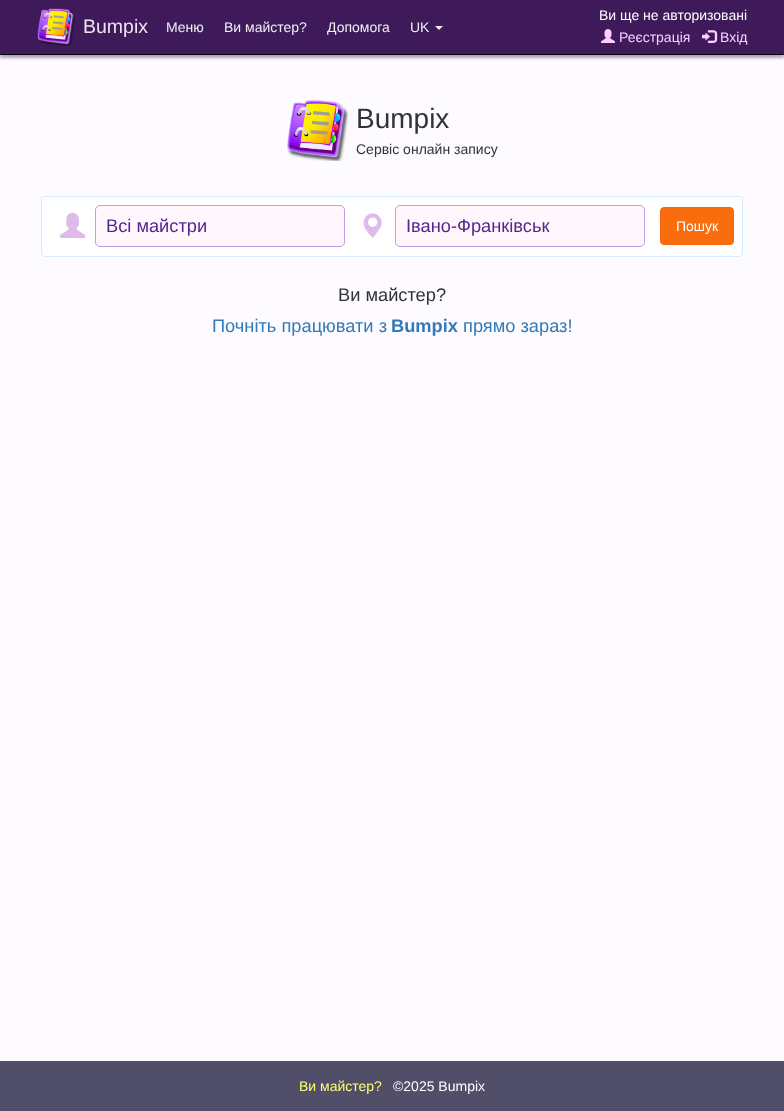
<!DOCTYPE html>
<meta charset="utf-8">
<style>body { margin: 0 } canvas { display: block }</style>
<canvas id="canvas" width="784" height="1111"></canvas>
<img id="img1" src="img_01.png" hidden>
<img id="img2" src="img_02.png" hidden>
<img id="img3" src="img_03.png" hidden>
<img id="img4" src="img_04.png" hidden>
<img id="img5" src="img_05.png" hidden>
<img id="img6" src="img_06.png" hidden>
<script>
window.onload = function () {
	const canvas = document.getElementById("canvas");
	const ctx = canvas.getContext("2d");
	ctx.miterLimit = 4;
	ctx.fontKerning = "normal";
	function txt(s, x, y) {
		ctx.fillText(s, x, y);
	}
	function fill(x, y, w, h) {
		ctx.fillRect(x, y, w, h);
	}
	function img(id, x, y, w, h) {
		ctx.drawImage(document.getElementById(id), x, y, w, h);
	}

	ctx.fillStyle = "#FDFBFF";
	fill(0, 0, 784, 1111);
	ctx.fillStyle = "rgba(62, 26, 91, 0.4)";
	ctx.filter = "blur(1.5px)";
	ctx.beginPath();
	ctx.rect(0, 3, 784, 55);
	ctx.fill();
	ctx.filter = "none";
	ctx.fillStyle = "#3E1A5B";
	fill(0, 0, 784, 54);
	ctx.fillStyle = "#080808";
	fill(0, 54, 784, 1);
	img("img1", 37, 8, 38, 38);
	ctx.fillStyle = "#F0F0F0";
	ctx.beginPath();
	ctx.moveTo(435, 26);
	ctx.lineTo(443, 26);
	ctx.lineTo(439, 30);
	ctx.closePath();
	ctx.fill();
	img("img2", 601, 29, 14, 14);
	img("img3", 702, 30, 16, 13);
	img("img4", 287, 100, 61, 61);
	ctx.fillStyle = "#FFFFFF";
	ctx.beginPath();
	ctx.roundRect(41.5, 196.5, 701, 60, 3.5);
	ctx.fill();
	ctx.strokeStyle = "#D5ECFF";
	ctx.stroke();
	img("img5", 60, 212, 26, 26);
	ctx.fillStyle = "#FFF6FE";
	ctx.beginPath();
	ctx.roundRect(95.5, 205.5, 249, 41, 4.5);
	ctx.fill();
	ctx.strokeStyle = "#C09BE8";
	ctx.stroke();
	img("img6", 363, 213, 19, 25);
	ctx.beginPath();
	ctx.roundRect(395.5, 205.5, 249, 41, 4.5);
	ctx.fill();
	ctx.stroke();
	ctx.fillStyle = "#FA6D0F";
	ctx.beginPath();
	ctx.roundRect(660.5, 207.5, 73, 37, 3.5);
	ctx.fill();
	ctx.strokeStyle = "#F2680C";
	ctx.stroke();
	ctx.fillStyle = "#504E69";
	fill(0, 1061, 784, 50);
	ctx.font = "19.5px Liberation Sans";
	ctx.fillStyle = "#EFE3F0";
	txt("Bumpix", 83, 33);
	ctx.font = "14px Liberation Sans";
	ctx.fillStyle = "#F0F0F0";
	txt("Меню", 166, 32);
	txt("Ви майстер?", 224, 32);
	txt("Допомога", 327, 32);
	txt("UK", 410, 32);
	ctx.fillStyle = "#FFFFFF";
	txt("Ви ще не авторизовані", 599, 20);
	ctx.fillStyle = "#FFCCFE";
	txt("Реєстрація", 619, 42);
	txt("Вхід", 720, 42);
	ctx.font = "28px Liberation Sans";
	ctx.fillStyle = "#333333";
	txt("Bumpix", 356, 128);
	ctx.font = "14px Liberation Sans";
	txt("Сервіс онлайн запису", 356, 154);
	ctx.font = "18.25px Liberation Sans";
	ctx.fillStyle = "#53268E";
	txt("Всі майстри", 106, 232);
	txt("Івано-Франківськ", 406, 232);
	ctx.font = "14px Liberation Sans";
	ctx.fillStyle = "#FFFFFF";
	txt("Пошук", 676, 231);
	ctx.font = "18.25px Liberation Sans";
	ctx.fillStyle = "#333333";
	txt("Ви майстер?", 338, 301);
	ctx.fillStyle = "#337AB7";
	txt("Почніть працювати з", 212, 332);
	ctx.font = "bold 18.25px Liberation Sans";
	txt("Bumpix", 391, 332);
	ctx.font = "18.25px Liberation Sans";
	txt("прямо зараз!", 463, 332);
	ctx.font = "14px Liberation Sans";
	ctx.fillStyle = "#FFFF6F";
	txt("Ви майстер?", 299, 1091);
	ctx.fillStyle = "#FFFFFF";
	txt("©2025 Bumpix", 393, 1091);
};
</script>
